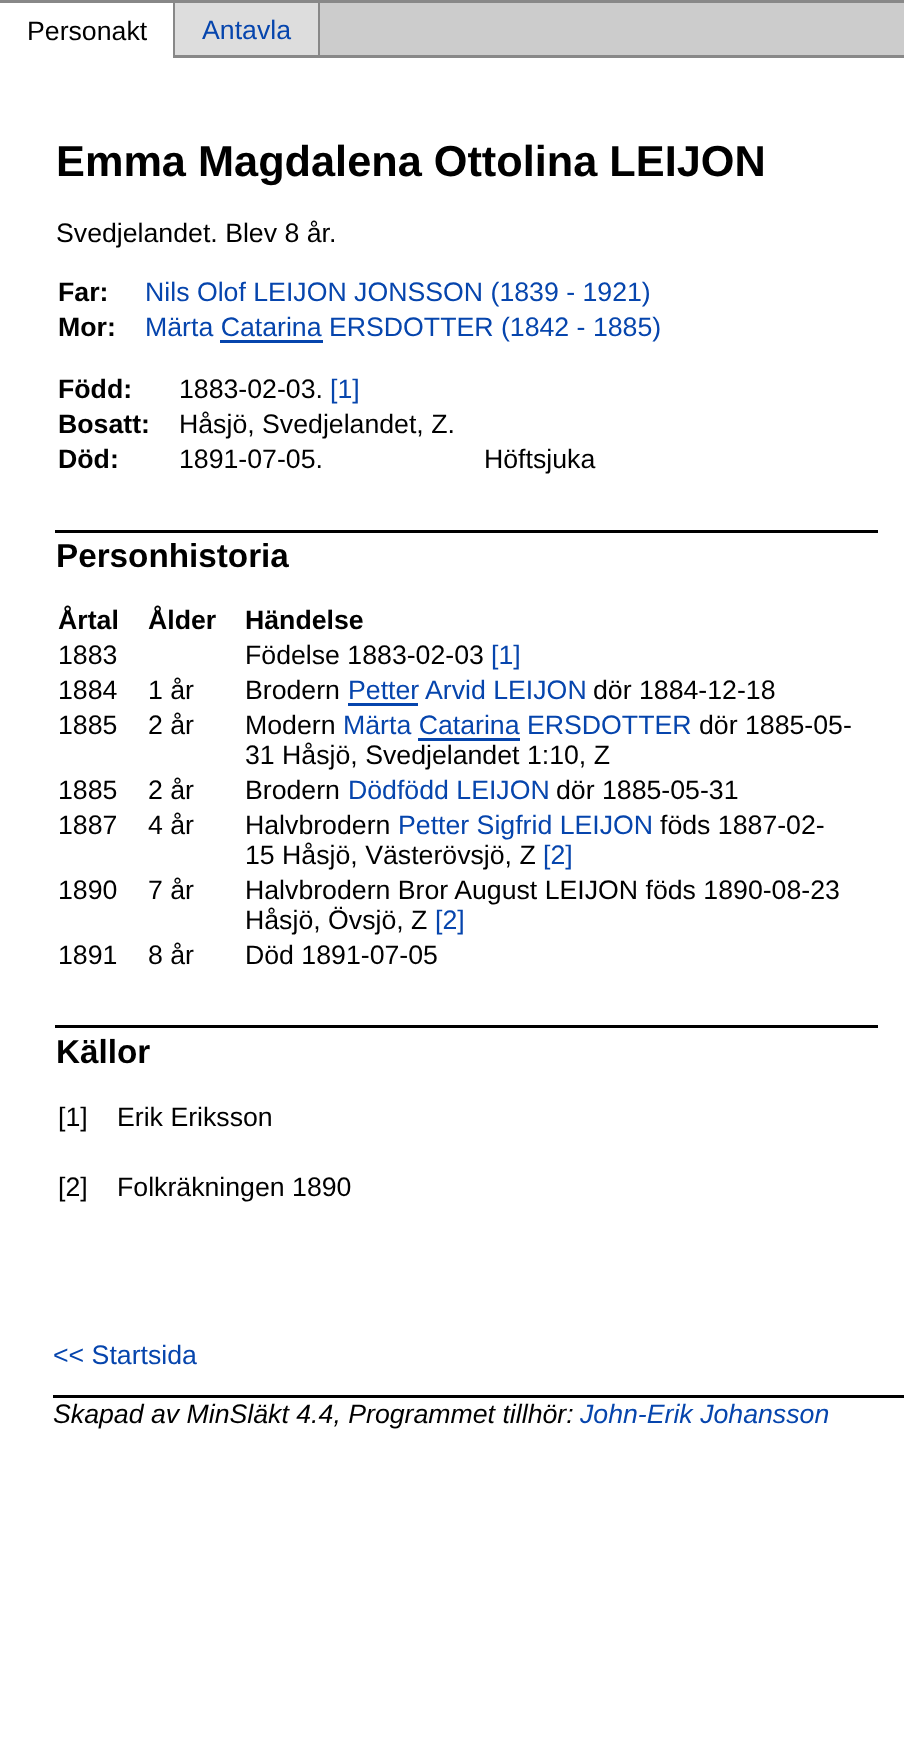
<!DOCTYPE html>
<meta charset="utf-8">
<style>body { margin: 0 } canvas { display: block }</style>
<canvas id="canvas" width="904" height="1753"></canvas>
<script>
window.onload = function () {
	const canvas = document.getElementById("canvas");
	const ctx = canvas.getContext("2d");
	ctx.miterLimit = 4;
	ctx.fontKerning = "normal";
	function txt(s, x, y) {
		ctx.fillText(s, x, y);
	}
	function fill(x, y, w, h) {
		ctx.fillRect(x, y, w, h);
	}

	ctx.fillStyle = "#FFFFFF";
	fill(0, 0, 904, 1753);
	ctx.fillStyle = "#888888";
	fill(0, 0, 904, 3);
	fill(173, 0, 2, 58);
	ctx.fillStyle = "#DDDDDD";
	fill(175, 3, 143, 52);
	ctx.fillStyle = "#888888";
	fill(318, 0, 2, 58);
	fill(175, 55, 729, 3);
	ctx.fillStyle = "#CCCCCC";
	fill(320, 3, 584, 52);
	ctx.fillStyle = "#0645AD";
	fill(220, 340, 103, 3);
	ctx.fillStyle = "#000000";
	fill(55, 530, 823, 3);
	ctx.fillStyle = "#0645AD";
	fill(348, 703, 70, 3);
	fill(418, 738, 102, 3);
	ctx.fillStyle = "#000000";
	fill(55, 1025, 823, 3);
	fill(53, 1395, 851, 3);
	ctx.font = "26.7px Liberation Sans";
	txt("Personakt", 27, 40);
	ctx.fillStyle = "#0645AD";
	txt("Antavla", 202, 39);
	ctx.font = "bold 43.3px Liberation Sans";
	ctx.fillStyle = "#000000";
	txt("Emma Magdalena Ottolina LEIJON", 56, 176);
	ctx.font = "26.7px Liberation Sans";
	txt("Svedjelandet. Blev 8 år.", 56, 242);
	ctx.font = "bold 26.7px Liberation Sans";
	txt("Far:", 58, 301);
	ctx.font = "26.7px Liberation Sans";
	ctx.fillStyle = "#0645AD";
	txt("Nils Olof LEIJON JONSSON (1839 - 1921)", 145, 301);
	ctx.font = "bold 26.7px Liberation Sans";
	ctx.fillStyle = "#000000";
	txt("Mor:", 58, 336);
	ctx.font = "26.7px Liberation Sans";
	ctx.fillStyle = "#0645AD";
	txt("Märta Catarina ERSDOTTER (1842 - 1885)", 145, 336);
	ctx.font = "bold 26.7px Liberation Sans";
	ctx.fillStyle = "#000000";
	txt("Född:", 58, 398);
	ctx.font = "26.7px Liberation Sans";
	txt("1883-02-03.", 179, 398);
	ctx.fillStyle = "#0645AD";
	txt("[1]", 330, 398);
	ctx.font = "bold 26.7px Liberation Sans";
	ctx.fillStyle = "#000000";
	txt("Bosatt:", 58, 433);
	ctx.font = "26.7px Liberation Sans";
	txt("Håsjö, Svedjelandet, Z.", 179, 433);
	ctx.font = "bold 26.7px Liberation Sans";
	txt("Död:", 58, 468);
	ctx.font = "26.7px Liberation Sans";
	txt("1891-07-05.", 179, 468);
	txt("Höftsjuka", 484, 468);
	ctx.font = "bold 33.25px Liberation Sans";
	txt("Personhistoria", 56, 567);
	ctx.font = "bold 26.7px Liberation Sans";
	txt("Årtal", 58, 629);
	txt("Ålder", 148, 629);
	txt("Händelse", 245, 629);
	ctx.font = "26.7px Liberation Sans";
	txt("1883", 58, 664);
	txt("Födelse 1883-02-03", 245, 664);
	ctx.fillStyle = "#0645AD";
	txt("[1]", 491, 664);
	ctx.fillStyle = "#000000";
	txt("1884", 58, 699);
	txt("1 år", 148, 699);
	txt("Brodern", 245, 699);
	ctx.fillStyle = "#0645AD";
	txt("Petter", 348, 699);
	txt("Arvid LEIJON", 425, 699);
	ctx.fillStyle = "#000000";
	txt("dör 1884-12-18", 593, 699);
	txt("1885", 58, 734);
	txt("2 år", 148, 734);
	txt("Modern", 245, 734);
	ctx.fillStyle = "#0645AD";
	txt("Märta Catarina ERSDOTTER", 343, 734);
	ctx.fillStyle = "#000000";
	txt("dör 1885-05-", 699, 734);
	txt("31 Håsjö, Svedjelandet 1:10, Z", 245, 764);
	txt("1885", 58, 799);
	txt("2 år", 148, 799);
	txt("Brodern", 245, 799);
	ctx.fillStyle = "#0645AD";
	txt("Dödfödd LEIJON", 348, 799);
	ctx.fillStyle = "#000000";
	txt("dör 1885-05-31", 556, 799);
	txt("1887", 58, 834);
	txt("4 år", 148, 834);
	txt("Halvbrodern", 245, 834);
	ctx.fillStyle = "#0645AD";
	txt("Petter Sigfrid LEIJON", 398, 834);
	ctx.fillStyle = "#000000";
	txt("föds 1887-02-", 660, 834);
	txt("15 Håsjö, Västerövsjö, Z", 245, 864);
	ctx.fillStyle = "#0645AD";
	txt("[2]", 543, 864);
	ctx.fillStyle = "#000000";
	txt("1890", 58, 899);
	txt("7 år", 148, 899);
	txt("Halvbrodern Bror August LEIJON föds 1890-08-23", 245, 899);
	txt("Håsjö, Övsjö, Z", 245, 929);
	ctx.fillStyle = "#0645AD";
	txt("[2]", 435, 929);
	ctx.fillStyle = "#000000";
	txt("1891", 58, 964);
	txt("8 år", 148, 964);
	txt("Död 1891-07-05", 245, 964);
	ctx.font = "bold 33.25px Liberation Sans";
	txt("Källor", 56, 1063);
	ctx.font = "26.7px Liberation Sans";
	txt("[1]", 58, 1126);
	txt("Erik Eriksson", 117, 1126);
	txt("[2]", 58, 1196);
	txt("Folkräkningen 1890", 117, 1196);
	ctx.fillStyle = "#0645AD";
	txt("<< Startsida", 53, 1364);
	ctx.font = "italic 26.7px Liberation Sans";
	ctx.fillStyle = "#000000";
	txt("Skapad av MinSläkt 4.4, Programmet tillhör:", 53, 1423);
	ctx.fillStyle = "#0645AD";
	txt("John-Erik Johansson", 580, 1423);
};
</script>
